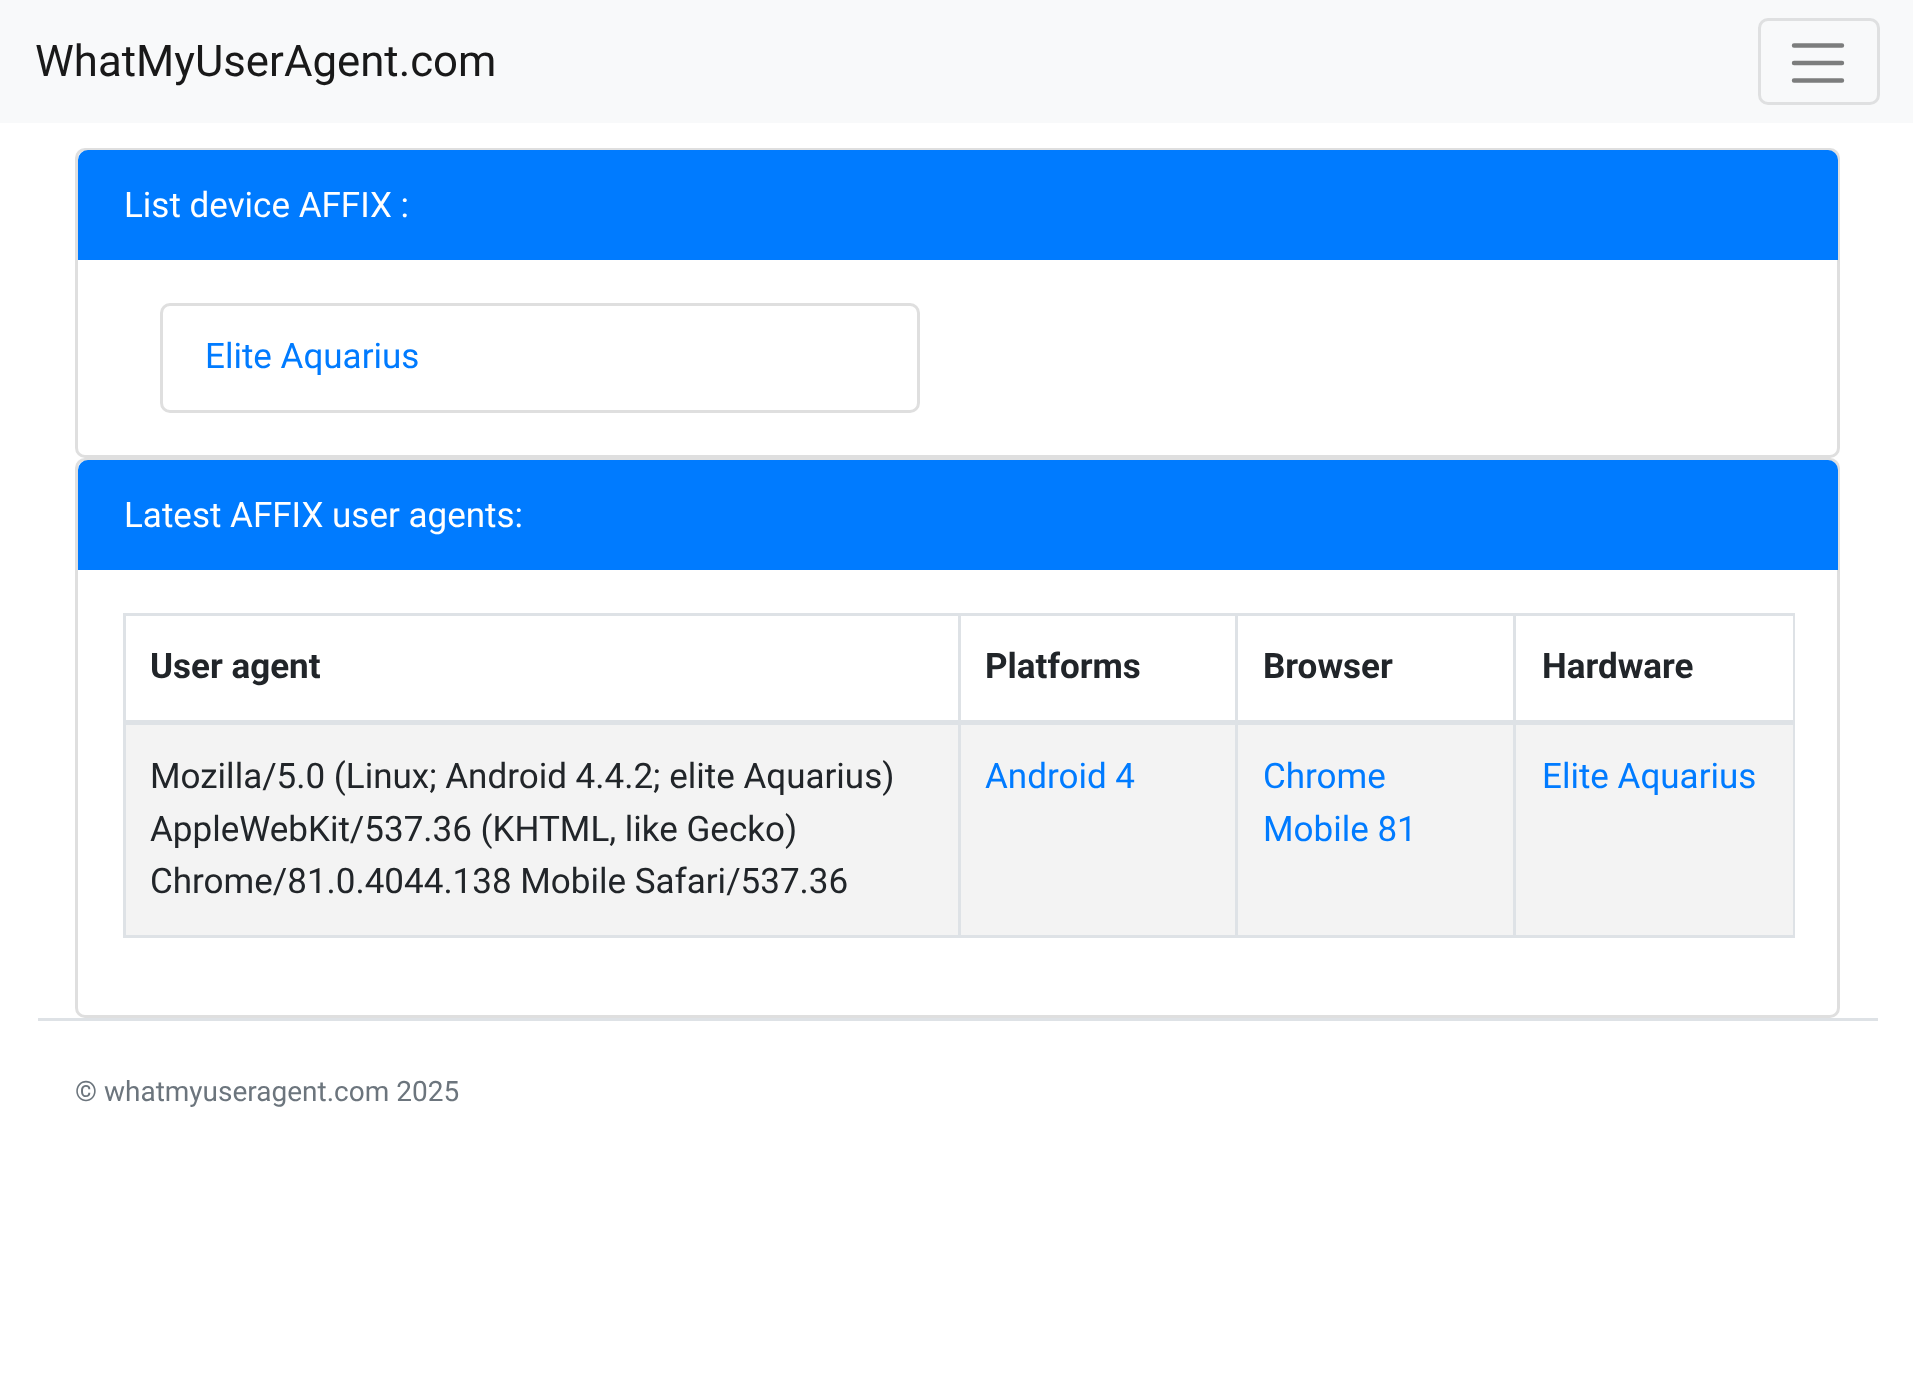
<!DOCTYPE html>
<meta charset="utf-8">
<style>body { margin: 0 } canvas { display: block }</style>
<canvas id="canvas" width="1913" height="1394"></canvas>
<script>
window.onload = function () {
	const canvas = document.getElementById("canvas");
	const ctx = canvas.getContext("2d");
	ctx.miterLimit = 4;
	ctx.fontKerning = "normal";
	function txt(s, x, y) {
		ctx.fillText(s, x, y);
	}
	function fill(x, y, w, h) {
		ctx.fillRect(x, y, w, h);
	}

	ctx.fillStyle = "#FFFFFF";
	fill(0, 0, 1913, 1394);
	ctx.fillStyle = "#F8F9FA";
	fill(0, 0, 1913, 123);
	ctx.beginPath();
	ctx.roundRect(1759.5, 19.5, 119, 84, 8.5);
	ctx.strokeStyle = "#DFE0E1";
	ctx.lineWidth = 3;
	ctx.stroke();
	ctx.beginPath();
	ctx.moveTo(1794, 45.5);
	ctx.lineTo(1842, 45.5);
	ctx.moveTo(1794, 63);
	ctx.lineTo(1842, 63);
	ctx.moveTo(1794, 80.5);
	ctx.lineTo(1842, 80.5);
	ctx.strokeStyle = "#7C7D7D";
	ctx.lineWidth = 4.4;
	ctx.lineCap = "round";
	ctx.stroke();
	ctx.beginPath();
	ctx.roundRect(76.5, 149.5, 1762, 307, 8.5);
	ctx.strokeStyle = "#DFDFDF";
	ctx.lineWidth = 3;
	ctx.stroke();
	ctx.fillStyle = "#007BFF";
	ctx.beginPath();
	ctx.roundRect(79.5, 151.5, 1757, 107, [8.5, 8.5, 0, 0]);
	ctx.fill();
	ctx.strokeStyle = "#007BFF";
	ctx.stroke();
	ctx.beginPath();
	ctx.roundRect(161.5, 304.5, 757, 107, 8.5);
	ctx.strokeStyle = "#DFDFDF";
	ctx.stroke();
	ctx.beginPath();
	ctx.roundRect(76.5, 459.5, 1762, 557, 8.5);
	ctx.stroke();
	ctx.beginPath();
	ctx.roundRect(79.5, 461.5, 1757, 107, [8.5, 8.5, 0, 0]);
	ctx.fill();
	ctx.strokeStyle = "#007BFF";
	ctx.stroke();
	ctx.fillStyle = "#DEE2E6";
	fill(1513, 613, 282, 3);
	ctx.fillStyle = "#F3F3F3";
	fill(126, 725, 1667, 210);
	ctx.fillStyle = "#DEE2E6";
	fill(1793, 720, 2, 218);
	fill(1513, 935, 282, 3);
	fill(1513, 720, 3, 218);
	fill(1513, 613, 3, 110);
	fill(1235, 613, 280, 3);
	fill(1235, 935, 280, 3);
	fill(1235, 720, 3, 218);
	fill(1235, 613, 3, 110);
	fill(958, 613, 280, 3);
	fill(958, 935, 280, 3);
	fill(958, 720, 3, 218);
	fill(958, 613, 3, 110);
	fill(123, 613, 837, 3);
	fill(123, 935, 837, 3);
	fill(123, 720, 3, 218);
	fill(123, 613, 3, 110);
	fill(1793, 613, 2, 110);
	fill(123, 720, 1672, 5);
	fill(38, 1018, 1840, 3);
	ctx.font = "43.75px Roboto";
	ctx.fillStyle = "#191919";
	txt("WhatMyUserAgent.com", 35, 76);
	ctx.font = "35px Roboto";
	ctx.fillStyle = "#FFFFFF";
	txt("List device AFFIX :", 124, 217);
	ctx.fillStyle = "#007BFF";
	txt("Elite Aquarius", 205, 368);
	ctx.fillStyle = "#FFFFFF";
	txt("Latest AFFIX user agents:", 124, 527);
	ctx.font = "bold 35px Roboto";
	ctx.fillStyle = "#212529";
	txt("User agent", 150, 678);
	txt("Platforms", 985, 678);
	txt("Browser", 1263, 678);
	txt("Hardware", 1542, 678);
	ctx.font = "35px Roboto";
	txt("Mozilla/5.0 (Linux; Android 4.4.2; elite Aquarius)", 150, 788);
	txt("AppleWebKit/537.36 (KHTML, like Gecko)", 150, 841);
	txt("Chrome/81.0.4044.138 Mobile Safari/537.36", 150, 893);
	ctx.fillStyle = "#007BFF";
	txt("Android 4", 985, 788);
	txt("Chrome", 1263, 788);
	txt("Mobile 81", 1263, 841);
	txt("Elite Aquarius", 1542, 788);
	ctx.font = "28px Roboto";
	ctx.fillStyle = "#6C757D";
	txt("© whatmyuseragent.com 2025", 75, 1101);
};
</script>
